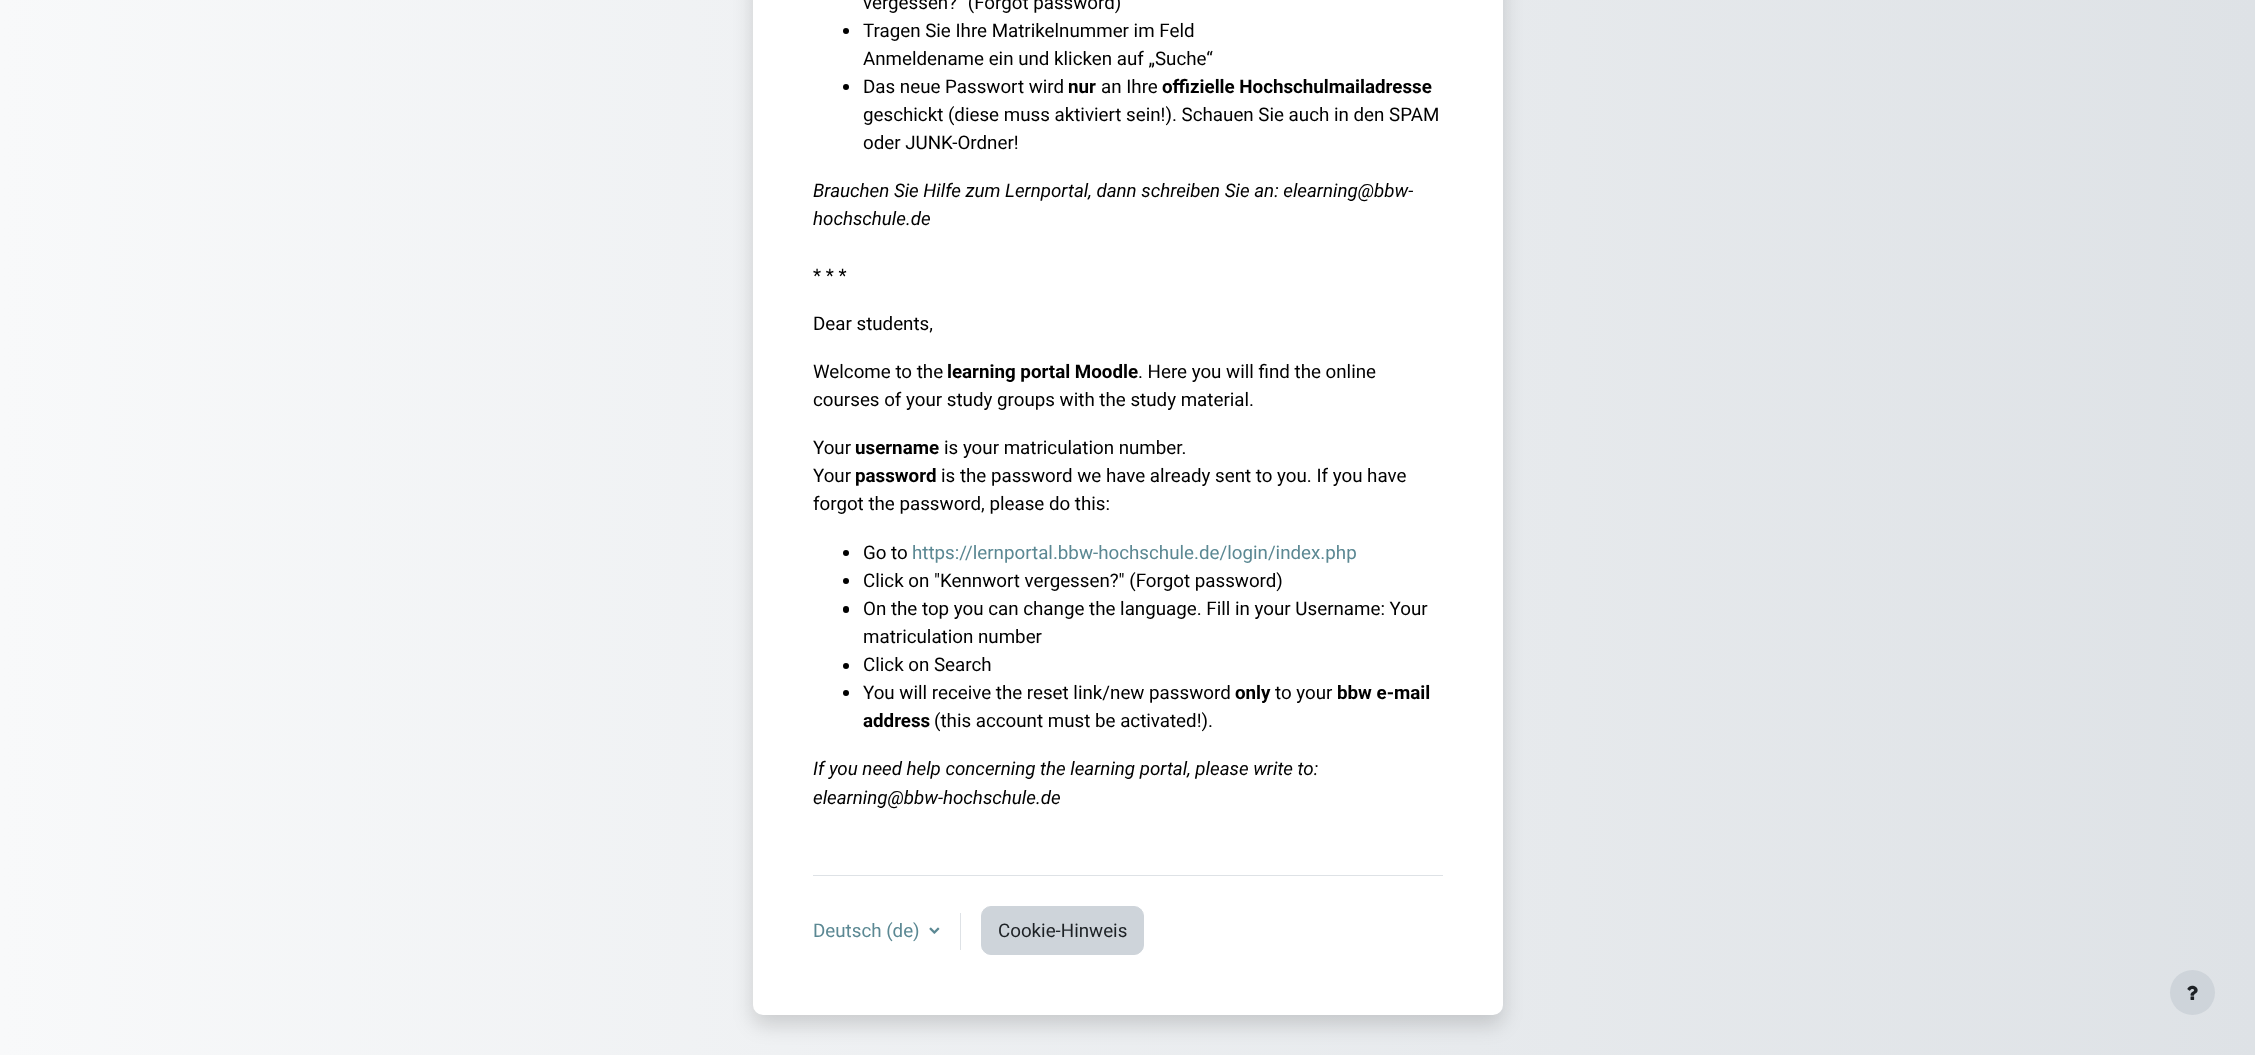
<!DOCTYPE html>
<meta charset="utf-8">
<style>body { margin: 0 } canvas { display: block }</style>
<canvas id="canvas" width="2255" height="1055"></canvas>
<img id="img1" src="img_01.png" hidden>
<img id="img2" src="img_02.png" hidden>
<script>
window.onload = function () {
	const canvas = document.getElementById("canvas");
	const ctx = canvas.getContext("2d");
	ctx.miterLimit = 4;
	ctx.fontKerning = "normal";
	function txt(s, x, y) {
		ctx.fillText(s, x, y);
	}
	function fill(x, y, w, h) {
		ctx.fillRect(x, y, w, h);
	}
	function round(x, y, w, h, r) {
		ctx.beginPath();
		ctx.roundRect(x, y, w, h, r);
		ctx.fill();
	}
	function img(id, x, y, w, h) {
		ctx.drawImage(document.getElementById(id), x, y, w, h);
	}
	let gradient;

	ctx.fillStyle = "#FFFFFF";
	fill(0, 0, 2255, 1055);
	gradient = ctx.createLinearGradient(0, 58, 2255, 57);
	gradient.addColorStop(0, "#F8F9FA");
	gradient.addColorStop(1, "#DEE2E6");
	ctx.fillStyle = gradient;
	fill(0, 0, 2255, 1055);
	ctx.fillStyle = "rgba(0, 0, 0, 0.15)";
	ctx.filter = "blur(10px)";
	ctx.beginPath();
	ctx.roundRect(753, -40, 750, 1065, 10);
	ctx.fill();
	ctx.filter = "none";
	ctx.fillStyle = "#FFFFFF";
	round(753, -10, 750, 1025, 10);
	ctx.fillStyle = "#000000";
	ctx.beginPath();
	ctx.arc(846, 31, 3, 0, Math.PI * 2);
	ctx.fill();
	ctx.beginPath();
	ctx.arc(846, 87, 3, 0, Math.PI * 2);
	ctx.fill();
	ctx.beginPath();
	ctx.arc(846, 553, 3, 0, Math.PI * 2);
	ctx.fill();
	ctx.beginPath();
	ctx.arc(846, 581, 3, 0, Math.PI * 2);
	ctx.fill();
	round(843, 606, 6, 7, 3);
	ctx.beginPath();
	ctx.arc(846, 666, 3, 0, Math.PI * 2);
	ctx.fill();
	ctx.beginPath();
	ctx.arc(846, 693, 3, 0, Math.PI * 2);
	ctx.fill();
	ctx.fillStyle = "#DEE2E6";
	fill(813, 875, 630, 1);
	img("img1", 929, 927, 11, 7);
	fill(960, 913, 1, 37);
	ctx.fillStyle = "#CED4DA";
	ctx.beginPath();
	ctx.roundRect(981.5, 906.5, 162, 48, 9.5);
	ctx.fill();
	ctx.strokeStyle = "#CED4DA";
	ctx.stroke();
	ctx.beginPath();
	ctx.arc(2192.5, 992.5, 22.5, 0, Math.PI * 2);
	ctx.fill();
	img("img2", 2187, 985, 11, 15);
	ctx.font = "18.75px Roboto";
	ctx.fillStyle = "#000000";
	txt("vergessen?\" (Forgot password)", 863, 9);
	txt("Tragen Sie Ihre Matrikelnummer im Feld", 863, 37);
	txt("Anmeldename ein und klicken auf „Suche“", 863, 65);
	txt("Das neue Passwort wird", 863, 93);
	ctx.font = "bold 18.75px Roboto";
	txt("nur", 1068, 93);
	ctx.font = "18.75px Roboto";
	txt("an Ihre", 1101, 93);
	ctx.font = "bold 18.75px Roboto";
	txt("offizielle Hochschulmailadresse", 1162, 93);
	ctx.font = "18.75px Roboto";
	txt("geschickt (diese muss aktiviert sein!). Schauen Sie auch in den SPAM", 863, 121);
	txt("oder JUNK-Ordner!", 863, 149);
	ctx.font = "italic 18.75px Roboto";
	txt("Brauchen Sie Hilfe zum Lernportal, dann schreiben Sie an: elearning@bbw-", 813, 197);
	txt("hochschule.de", 813, 225);
	ctx.font = "18.75px Roboto";
	txt("* * *", 813, 282);
	txt("Dear students,", 813, 330);
	txt("Welcome to the", 813, 378);
	ctx.font = "bold 18.75px Roboto";
	txt("learning portal Moodle", 947, 378);
	ctx.font = "18.75px Roboto";
	txt(". Here you will find the online", 1138, 378);
	txt("courses of your study groups with the study material.", 813, 406);
	txt("Your", 813, 454);
	ctx.font = "bold 18.75px Roboto";
	txt("username", 855, 454);
	ctx.font = "18.75px Roboto";
	txt("is your matriculation number.", 944, 454);
	txt("Your", 813, 482);
	ctx.font = "bold 18.75px Roboto";
	txt("password", 855, 482);
	ctx.font = "18.75px Roboto";
	txt("is the password we have already sent to you. If you have", 941, 482);
	txt("forgot the password, please do this:", 813, 510);
	txt("Go to", 863, 559);
	ctx.fillStyle = "#5B8893";
	txt("https://lernportal.bbw-hochschule.de/login/index.php", 912, 559);
	ctx.fillStyle = "#000000";
	txt("Click on \"Kennwort vergessen?\" (Forgot password)", 863, 587);
	txt("On the top you can change the language. Fill in your Username: Your", 863, 615);
	txt("matriculation number", 863, 643);
	txt("Click on Search", 863, 671);
	txt("You will receive the reset link/new password", 863, 699);
	ctx.font = "bold 18.75px Roboto";
	txt("only", 1235, 699);
	ctx.font = "18.75px Roboto";
	txt("to your", 1275, 699);
	ctx.font = "bold 18.75px Roboto";
	txt("bbw e-mail", 1337, 699);
	txt("address", 863, 727);
	ctx.font = "18.75px Roboto";
	txt("(this account must be activated!).", 934, 727);
	ctx.font = "italic 18.75px Roboto";
	txt("If you need help concerning the learning portal, please write to:", 813, 775);
	txt("elearning@bbw-hochschule.de", 813, 804);
	ctx.font = "18.75px Roboto";
	ctx.fillStyle = "#5B8893";
	txt("Deutsch (de)", 813, 937);
	ctx.fillStyle = "#1D2125";
	txt("Cookie-Hinweis", 998, 937);
};
</script>
